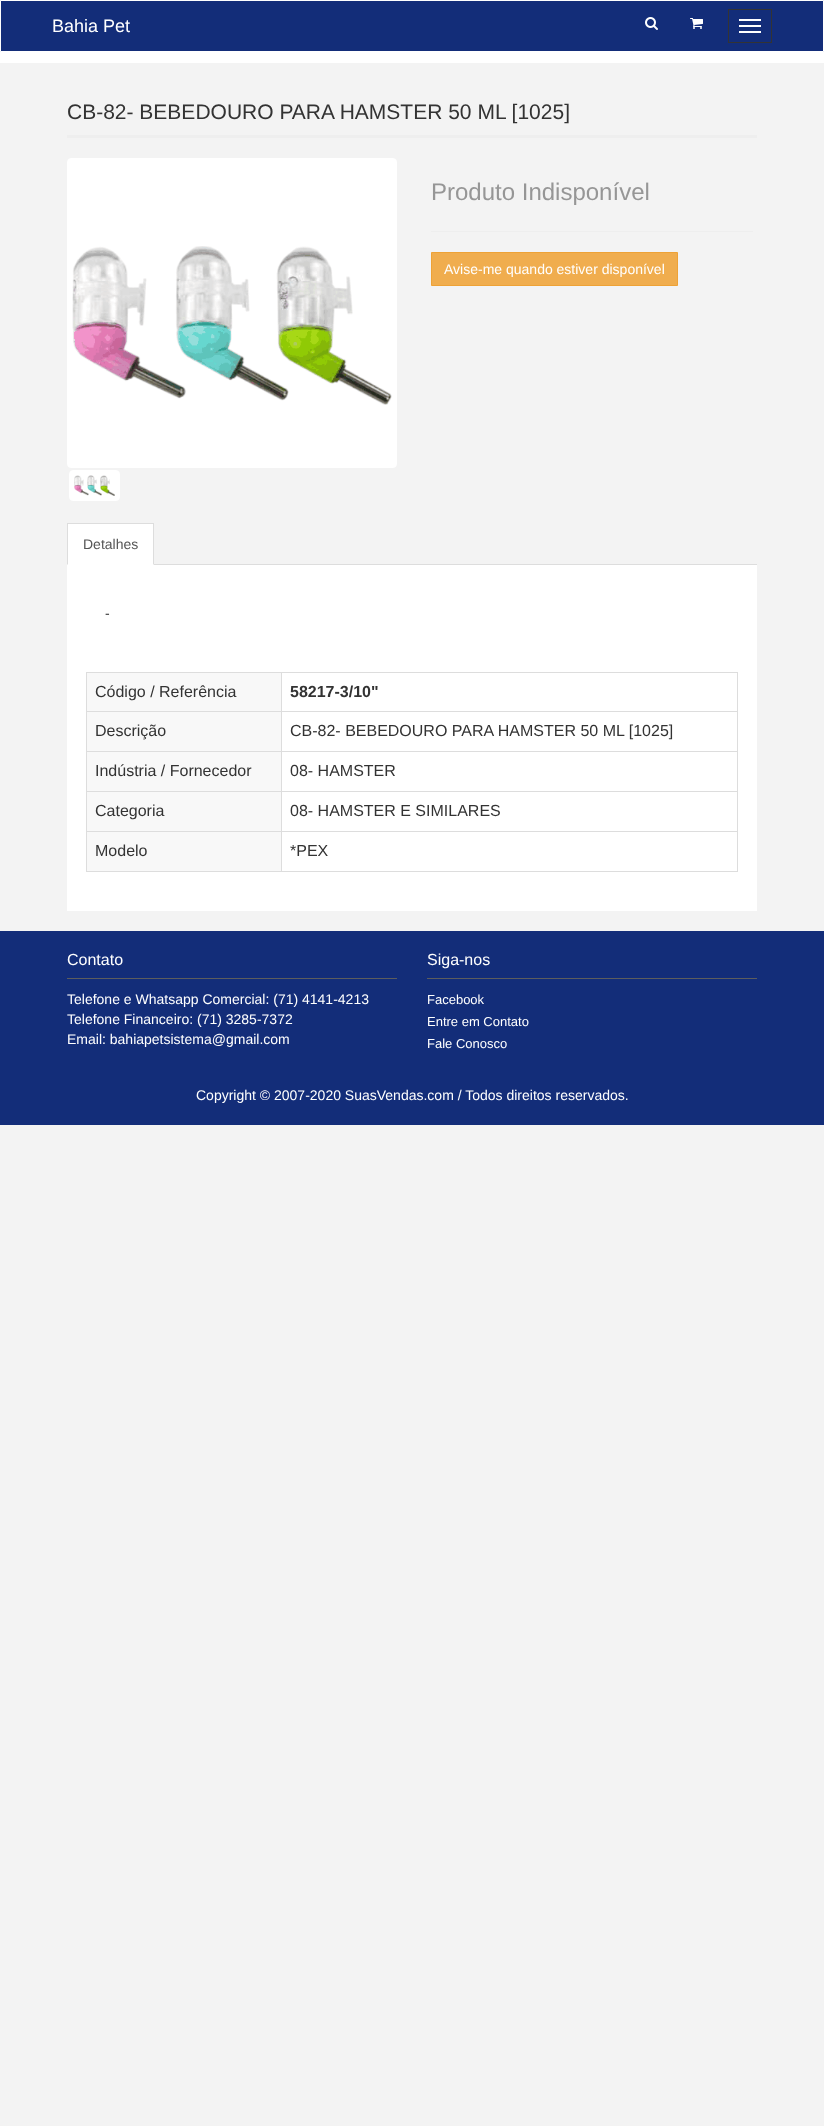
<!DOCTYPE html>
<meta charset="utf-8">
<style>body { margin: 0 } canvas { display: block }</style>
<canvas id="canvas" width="824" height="2126"></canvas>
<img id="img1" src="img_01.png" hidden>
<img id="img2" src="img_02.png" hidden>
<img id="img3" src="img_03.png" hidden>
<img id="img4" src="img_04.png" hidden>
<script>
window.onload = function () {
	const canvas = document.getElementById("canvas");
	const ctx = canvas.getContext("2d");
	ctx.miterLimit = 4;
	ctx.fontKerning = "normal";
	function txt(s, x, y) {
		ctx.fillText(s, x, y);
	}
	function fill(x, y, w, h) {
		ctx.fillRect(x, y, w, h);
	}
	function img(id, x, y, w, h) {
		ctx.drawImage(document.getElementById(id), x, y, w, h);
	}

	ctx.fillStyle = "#F3F3F3";
	fill(0, 0, 824, 2126);
	ctx.fillStyle = "#FFFFFF";
	fill(0, 52, 824, 11);
	ctx.fillStyle = "#132D79";
	ctx.beginPath();
	ctx.rect(0.5, 0.5, 823, 51);
	ctx.fill();
	ctx.strokeStyle = "#FFFFFF";
	ctx.stroke();
	img("img1", 645, 17, 13, 13);
	img("img2", 690, 18, 13, 11);
	ctx.strokeStyle = "#333333";
	ctx.strokeRect(728.5, 9.5, 43, 33);
	ctx.fillStyle = "#FFFFFF";
	fill(739, 19, 22, 2);
	fill(739, 25, 22, 2);
	fill(739, 31, 22, 2);
	ctx.fillStyle = "#EEEEEE";
	fill(67, 135, 690, 3);
	ctx.fillStyle = "#FFFFFF";
	ctx.beginPath();
	ctx.roundRect(67.5, 158.5, 329, 309, 3.5);
	ctx.fill();
	ctx.strokeStyle = "#FFFFFF";
	ctx.stroke();
	img("img3", 72, 246, 320, 159);
	ctx.beginPath();
	ctx.roundRect(69.5, 470.5, 50, 30, 3.5);
	ctx.fill();
	ctx.stroke();
	img("img4", 74, 475, 41, 21);
	ctx.fillStyle = "#EEEEEE";
	fill(431, 231, 322, 1);
	ctx.fillStyle = "#F0AD4E";
	ctx.beginPath();
	ctx.rect(431.5, 252.5, 246, 33);
	ctx.fill();
	ctx.strokeStyle = "#EEA236";
	ctx.stroke();
	ctx.fillStyle = "#DDDDDD";
	fill(154, 564, 603, 1);
	ctx.fillStyle = "#FFFFFF";
	fill(67, 524, 87, 41);
	ctx.fillStyle = "#DDDDDD";
	fill(67, 523, 87, 1);
	ctx.beginPath();
	ctx.moveTo(154, 523);
	ctx.lineTo(154, 565);
	ctx.lineTo(153, 564);
	ctx.lineTo(153, 524);
	ctx.closePath();
	ctx.fill();
	ctx.beginPath();
	ctx.moveTo(67, 565);
	ctx.lineTo(67, 523);
	ctx.lineTo(68, 524);
	ctx.lineTo(68, 564);
	ctx.closePath();
	ctx.fill();
	ctx.fillStyle = "#FFFFFF";
	fill(67, 565, 690, 346);
	ctx.fillStyle = "#DDDDDD";
	fill(86, 672, 652, 1);
	fill(737, 672, 1, 200);
	fill(86, 871, 652, 1);
	fill(86, 672, 1, 200);
	ctx.fillStyle = "#F8F8F8";
	fill(87, 673, 194, 38);
	ctx.fillStyle = "#DDDDDD";
	fill(281, 711, 457, 1);
	fill(281, 751, 457, 1);
	fill(281, 791, 457, 1);
	fill(281, 831, 457, 1);
	fill(281, 831, 1, 41);
	fill(86, 831, 196, 1);
	fill(281, 791, 1, 41);
	fill(86, 791, 196, 1);
	fill(281, 751, 1, 41);
	fill(86, 751, 196, 1);
	fill(281, 711, 1, 41);
	fill(86, 711, 196, 1);
	fill(281, 672, 1, 40);
	ctx.fillStyle = "#F8F8F8";
	fill(87, 712, 194, 39);
	fill(87, 752, 194, 39);
	fill(87, 792, 194, 39);
	fill(87, 832, 194, 39);
	ctx.fillStyle = "#132D79";
	fill(0, 931, 824, 194);
	ctx.fillStyle = "#5D5D5D";
	fill(67, 978, 330, 1);
	fill(427, 978, 330, 1);
	ctx.font = "18px Liberation Sans";
	ctx.fillStyle = "#FFFFFF";
	txt("Bahia Pet", 52, 32);
	ctx.font = "21px Liberation Sans";
	ctx.fillStyle = "#333333";
	txt("CB-82- BEBEDOURO PARA HAMSTER 50 ML [1025]", 67, 119);
	ctx.font = "24px Liberation Sans";
	ctx.fillStyle = "#969696";
	txt("Produto Indisponível", 431, 200);
	ctx.font = "14px Liberation Sans";
	ctx.fillStyle = "#FFFFFF";
	txt("Avise-me quando estiver disponível", 444, 274);
	ctx.fillStyle = "#555555";
	txt("Detalhes", 83, 549);
	ctx.fillStyle = "#333333";
	txt("-", 105, 618);
	ctx.font = "16px Liberation Sans";
	txt("Código / Referência", 95, 697);
	ctx.font = "bold 16px Liberation Sans";
	txt("58217-3/10\"", 290, 697);
	ctx.font = "16px Liberation Sans";
	txt("Descrição", 95, 736);
	txt("CB-82- BEBEDOURO PARA HAMSTER 50 ML [1025]", 290, 736);
	txt("Indústria / Fornecedor", 95, 776);
	txt("08- HAMSTER", 290, 776);
	txt("Categoria", 95, 816);
	txt("08- HAMSTER E SIMILARES", 290, 816);
	txt("Modelo", 95, 856);
	txt("*PEX", 290, 856);
	ctx.fillStyle = "#FFFFFF";
	txt("Contato", 67, 965);
	ctx.font = "14px Liberation Sans";
	txt("Telefone e Whatsapp Comercial: (71) 4141-4213", 67, 1004);
	txt("Telefone Financeiro: (71) 3285-7372", 67, 1024);
	txt("Email: bahiapetsistema@gmail.com", 67, 1044);
	ctx.font = "16px Liberation Sans";
	txt("Siga-nos", 427, 965);
	ctx.font = "13px Liberation Sans";
	txt("Facebook", 427, 1004);
	txt("Entre em Contato", 427, 1026);
	txt("Fale Conosco", 427, 1048);
	ctx.font = "14px Liberation Sans";
	txt("Copyright © 2007-2020 SuasVendas.com / Todos direitos reservados.", 196, 1100);
};
</script>
